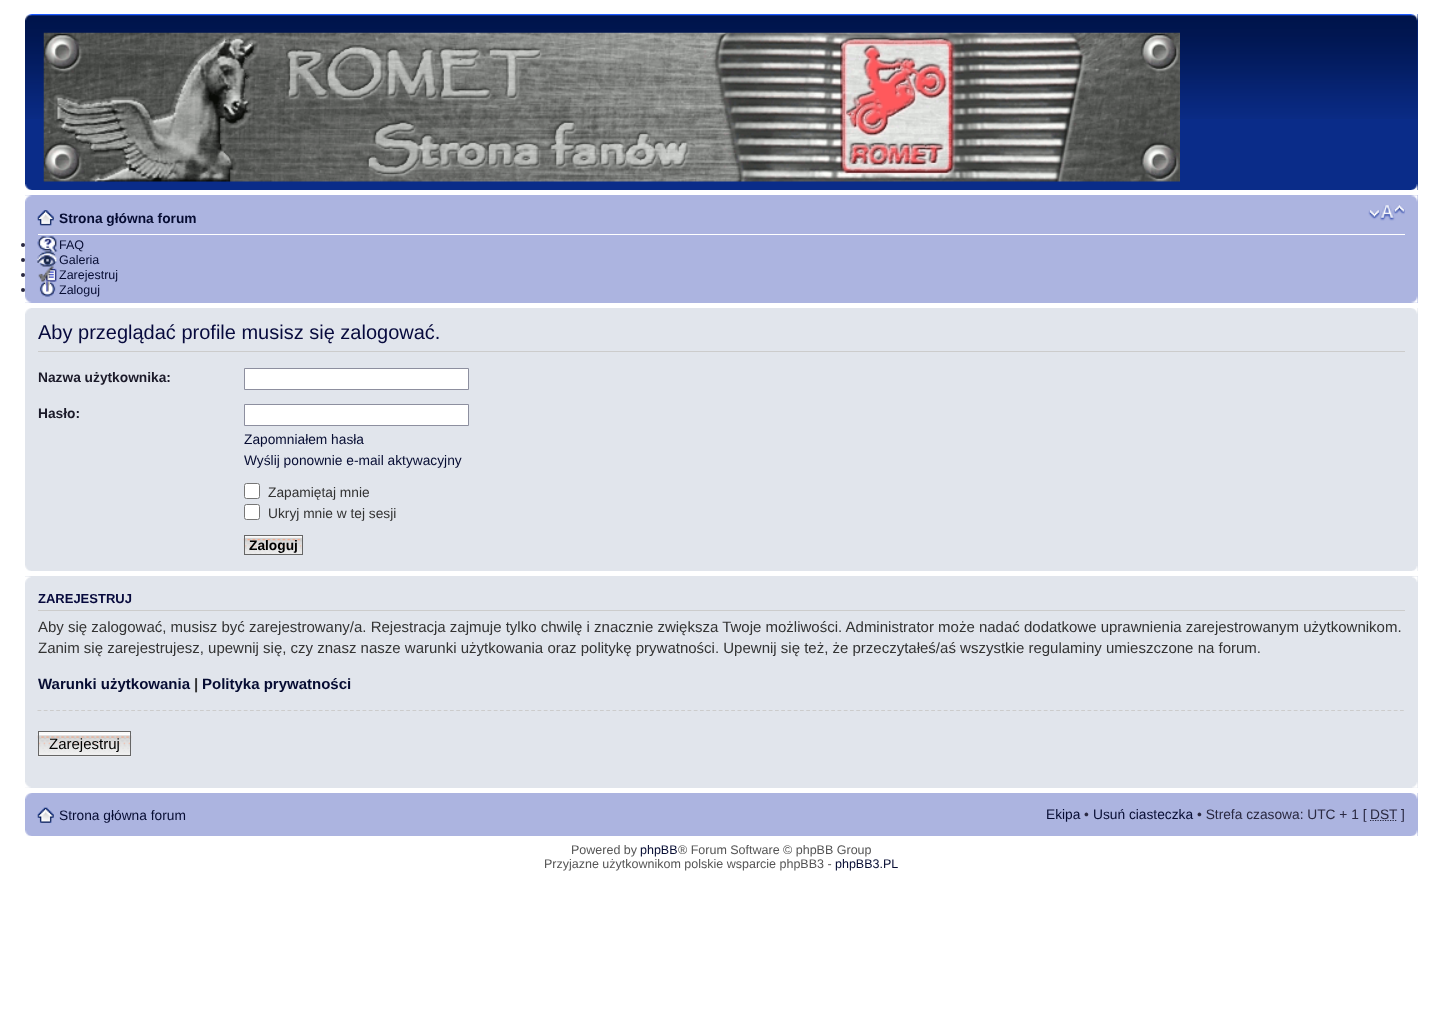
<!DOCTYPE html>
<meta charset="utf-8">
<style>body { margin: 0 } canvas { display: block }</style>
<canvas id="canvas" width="1442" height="1025"></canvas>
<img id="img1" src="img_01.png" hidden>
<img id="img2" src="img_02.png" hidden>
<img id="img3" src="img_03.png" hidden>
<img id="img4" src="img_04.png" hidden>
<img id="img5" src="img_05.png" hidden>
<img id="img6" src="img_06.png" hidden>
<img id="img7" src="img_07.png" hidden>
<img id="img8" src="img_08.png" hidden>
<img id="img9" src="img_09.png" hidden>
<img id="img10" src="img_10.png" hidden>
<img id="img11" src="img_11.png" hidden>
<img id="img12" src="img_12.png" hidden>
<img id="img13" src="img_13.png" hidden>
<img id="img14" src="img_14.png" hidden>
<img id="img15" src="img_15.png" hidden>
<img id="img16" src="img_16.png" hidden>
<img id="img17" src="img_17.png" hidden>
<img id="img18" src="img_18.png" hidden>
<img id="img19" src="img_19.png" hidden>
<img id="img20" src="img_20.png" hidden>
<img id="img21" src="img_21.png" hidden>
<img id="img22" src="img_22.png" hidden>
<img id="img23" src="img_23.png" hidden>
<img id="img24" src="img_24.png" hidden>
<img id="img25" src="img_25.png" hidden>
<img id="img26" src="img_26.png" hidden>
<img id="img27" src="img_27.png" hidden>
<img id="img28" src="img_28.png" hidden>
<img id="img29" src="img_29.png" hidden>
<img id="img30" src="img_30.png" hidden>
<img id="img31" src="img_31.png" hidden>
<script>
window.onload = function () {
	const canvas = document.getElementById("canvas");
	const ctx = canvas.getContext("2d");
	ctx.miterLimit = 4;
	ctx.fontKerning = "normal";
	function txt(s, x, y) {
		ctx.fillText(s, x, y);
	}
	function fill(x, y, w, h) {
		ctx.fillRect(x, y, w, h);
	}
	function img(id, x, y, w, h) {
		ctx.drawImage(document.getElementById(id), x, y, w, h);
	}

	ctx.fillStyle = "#FFFFFF";
	fill(0, 0, 1442, 1025);
	ctx.fillStyle = "#0A2C89";
	fill(25, 14, 1393, 176);
	img("img1", 25, 14, 1393, 105);
	img("img2", 25, 14, 7, 7);
	img("img3", 1410, 14, 8, 7);
	img("img4", 43, 32, 1137, 150);
	img("img5", 25, 184, 7, 6);
	img("img6", 1411, 184, 7, 6);
	ctx.fillStyle = "#ACB4E0";
	fill(25, 195, 1393, 108);
	img("img7", 25, 195, 7, 7);
	img("img8", 1411, 195, 7, 7);
	ctx.fillStyle = "#FFFFFF";
	fill(38, 234, 1367, 1);
	img("img9", 37, 210, 17, 16);
	img("img10", 1368, 205, 37, 16);
	img("img11", 37, 236, 21, 16);
	ctx.fillStyle = "#2A2941";
	ctx.beginPath();
	ctx.arc(23, 245, 2, 0, Math.PI * 2);
	ctx.fill();
	img("img12", 37, 251, 20, 16);
	ctx.beginPath();
	ctx.arc(23, 260, 2, 0, Math.PI * 2);
	ctx.fill();
	img("img13", 38, 266, 19, 16);
	ctx.beginPath();
	ctx.arc(23, 275, 2, 0, Math.PI * 2);
	ctx.fill();
	img("img14", 39, 281, 17, 16);
	ctx.beginPath();
	ctx.arc(23, 290, 2, 0, Math.PI * 2);
	ctx.fill();
	img("img15", 25, 296, 7, 7);
	img("img16", 1411, 296, 7, 7);
	ctx.fillStyle = "#E1E5EC";
	fill(25, 308, 1393, 263);
	img("img17", 25, 308, 6, 6);
	img("img18", 1411, 308, 7, 6);
	ctx.fillStyle = "#CCCCCC";
	fill(38, 351, 1367, 1);
	ctx.fillStyle = "#FFFFFF";
	ctx.beginPath();
	ctx.rect(244.5, 368.5, 224, 21);
	ctx.fill();
	ctx.strokeStyle = "#8D8F9F";
	ctx.stroke();
	ctx.beginPath();
	ctx.rect(244.5, 404.5, 224, 21);
	ctx.fill();
	ctx.stroke();
	ctx.beginPath();
	ctx.roundRect(244.5, 483.5, 15, 15, 2);
	ctx.fill();
	ctx.strokeStyle = "#767676";
	ctx.stroke();
	ctx.beginPath();
	ctx.roundRect(244.5, 504.5, 15, 15, 2);
	ctx.fill();
	ctx.stroke();
	ctx.fillStyle = "#FAFAFA";
	fill(245, 536, 57, 1);
	img("img19", 243, 537, 59, 18);
	ctx.strokeStyle = "#666666";
	ctx.strokeRect(244.5, 535.5, 58, 19);
	img("img20", 25, 565, 6, 6);
	img("img21", 1412, 566, 6, 5);
	ctx.fillStyle = "#E1E5EC";
	fill(25, 576, 1393, 212);
	img("img22", 25, 576, 6, 7);
	img("img23", 1412, 576, 6, 6);
	ctx.fillStyle = "#CCCCCC";
	fill(38, 610, 1367, 1);
	ctx.beginPath();
	ctx.moveTo(37.5, 710.5);
	ctx.lineTo(1405, 710.5);
	ctx.strokeStyle = "#CCCCCC";
	ctx.lineWidth = 1.2;
	ctx.setLineDash([3.75, 2.5]);
	ctx.stroke();
	img("img24", 37, 734, 95, 23);
	ctx.fillStyle = "#FAFAFA";
	fill(39, 732, 91, 2);
	ctx.strokeStyle = "#666666";
	ctx.lineWidth = 1;
	ctx.setLineDash([]);
	ctx.strokeRect(38.5, 731.5, 92, 24);
	img("img25", 25, 782, 6, 6);
	img("img26", 1412, 782, 6, 6);
	ctx.fillStyle = "#ACB4E0";
	fill(25, 793, 1393, 43);
	img("img27", 25, 793, 7, 6);
	img("img28", 1411, 793, 7, 6);
	img("img29", 37, 807, 17, 16);
	ctx.beginPath();
	ctx.moveTo(1370, 820.5);
	ctx.lineTo(1397.5, 820.5);
	ctx.strokeStyle = "#2A2941";
	ctx.lineWidth = 1.2;
	ctx.setLineDash([1.25, 1.25]);
	ctx.stroke();
	img("img30", 25, 830, 7, 6);
	img("img31", 1411, 830, 7, 6);
	ctx.font = "bold 13.75px Liberation Sans";
	ctx.fillStyle = "#060C32";
	txt("Strona główna forum", 59, 223);
	ctx.font = "12.5px Liberation Sans";
	txt("FAQ", 59, 249);
	txt("Galeria", 59, 264);
	txt("Zarejestruj", 59, 279);
	txt("Zaloguj", 59, 294);
	ctx.font = "20px Liberation Sans";
	ctx.fillStyle = "#070A3D";
	txt("Aby przeglądać profile musisz się zalogować.", 38, 339);
	ctx.font = "bold 13.75px Liberation Sans";
	ctx.fillStyle = "#1B1A29";
	txt("Nazwa użytkownika:", 38, 382);
	txt("Hasło:", 38, 418);
	ctx.font = "13.75px Liberation Sans";
	ctx.fillStyle = "#060C32";
	txt("Zapomniałem hasła", 244, 444);
	txt("Wyślij ponownie e-mail aktywacyjny", 244, 465);
	ctx.fillStyle = "#333333";
	txt("Zapamiętaj mnie", 268, 497);
	txt("Ukryj mnie w tej sesji", 268, 518);
	ctx.font = "bold 13.75px Liberation Sans";
	ctx.fillStyle = "#000000";
	txt("Zaloguj", 249, 550);
	ctx.font = "bold 13px Liberation Sans";
	ctx.fillStyle = "#070A3D";
	txt("ZAREJESTRUJ", 38, 603);
	ctx.font = "15px Liberation Sans";
	ctx.fillStyle = "#333333";
	txt("Aby się zalogować, musisz być zarejestrowany/a. Rejestracja zajmuje tylko chwilę i znacznie zwiększa Twoje możliwości. Administrator może nadać dodatkowe uprawnienia zarejestrowanym użytkownikom.", 38, 632);
	txt("Zanim się zarejestrujesz, upewnij się, czy znasz nasze warunki użytkowania oraz politykę prywatności. Upewnij się też, że przeczytałeś/aś wszystkie regulaminy umieszczone na forum.", 38, 653);
	ctx.font = "bold 15px Liberation Sans";
	ctx.fillStyle = "#060C32";
	txt("Warunki użytkowania", 38, 689);
	ctx.fillStyle = "#333333";
	txt("|", 194, 689);
	ctx.fillStyle = "#060C32";
	txt("Polityka prywatności", 202, 689);
	ctx.font = "15px Liberation Sans";
	ctx.fillStyle = "#000000";
	txt("Zarejestruj", 49, 749);
	ctx.font = "13.75px Liberation Sans";
	ctx.fillStyle = "#060C32";
	txt("Strona główna forum", 59, 820);
	txt("Ekipa", 1046, 819);
	ctx.fillStyle = "#2A2941";
	txt("•", 1084, 819);
	ctx.fillStyle = "#060C32";
	txt("Usuń ciasteczka", 1093, 819);
	ctx.fillStyle = "#2A2941";
	txt("• Strefa czasowa: UTC + 1 [", 1197, 819);
	txt("DST ]", 1370, 819);
	ctx.font = "12.5px Liberation Sans";
	ctx.fillStyle = "#555555";
	txt("Powered by", 571, 854);
	ctx.fillStyle = "#060C32";
	txt("phpBB", 640, 854);
	ctx.fillStyle = "#555555";
	txt("® Forum Software © phpBB Group", 678, 854);
	txt("Przyjazne użytkownikom polskie wsparcie phpBB3 -", 544, 868);
	ctx.fillStyle = "#060C32";
	txt("phpBB3.PL", 835, 868);
};
</script>
